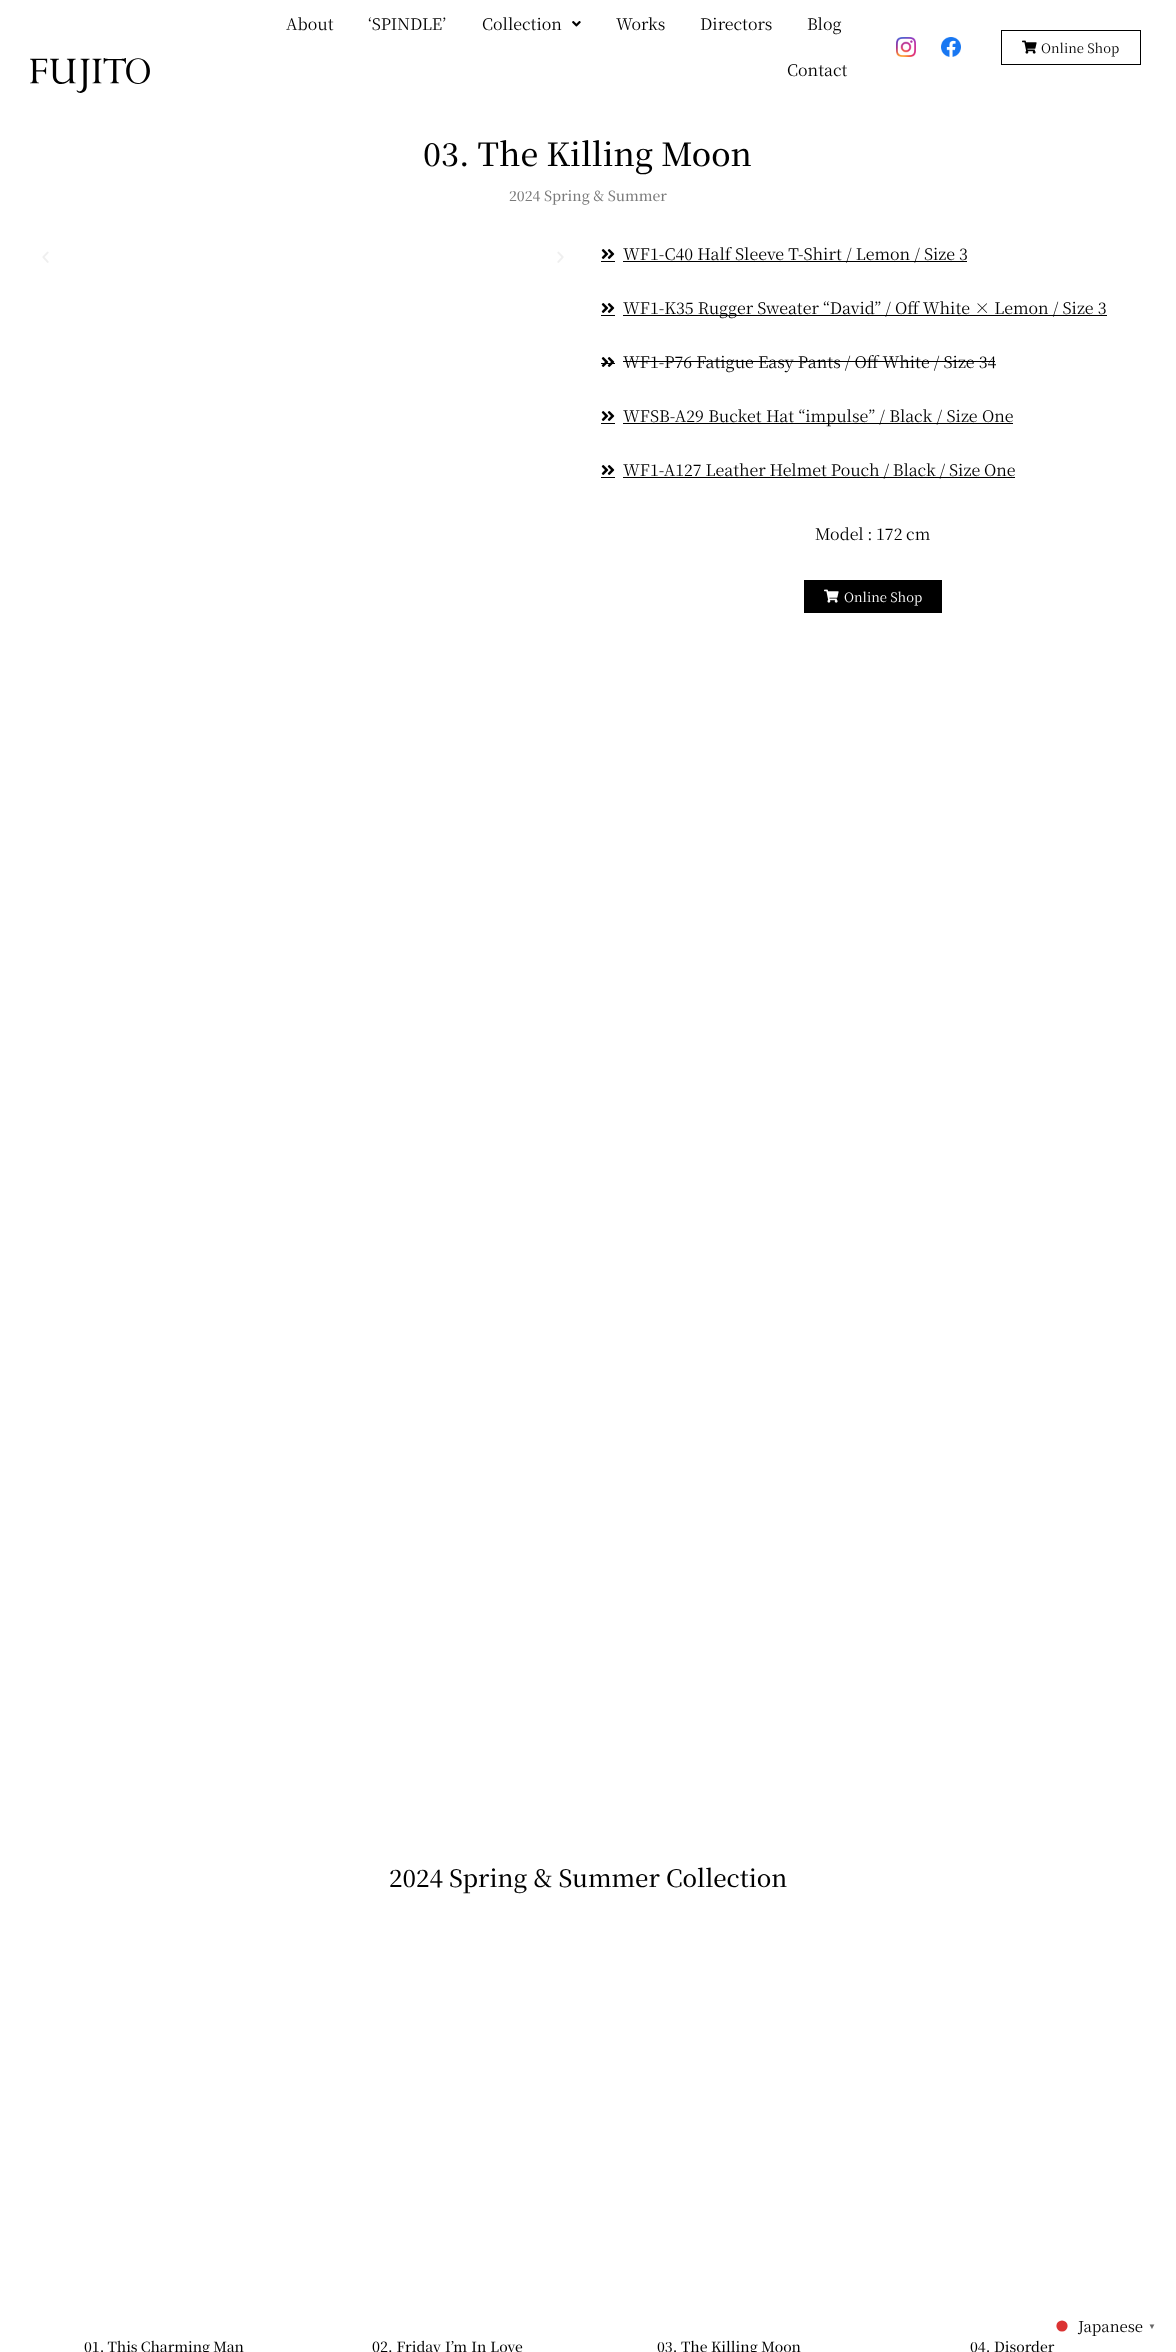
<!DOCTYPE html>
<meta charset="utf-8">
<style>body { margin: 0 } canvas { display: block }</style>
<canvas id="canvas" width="1176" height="2352"></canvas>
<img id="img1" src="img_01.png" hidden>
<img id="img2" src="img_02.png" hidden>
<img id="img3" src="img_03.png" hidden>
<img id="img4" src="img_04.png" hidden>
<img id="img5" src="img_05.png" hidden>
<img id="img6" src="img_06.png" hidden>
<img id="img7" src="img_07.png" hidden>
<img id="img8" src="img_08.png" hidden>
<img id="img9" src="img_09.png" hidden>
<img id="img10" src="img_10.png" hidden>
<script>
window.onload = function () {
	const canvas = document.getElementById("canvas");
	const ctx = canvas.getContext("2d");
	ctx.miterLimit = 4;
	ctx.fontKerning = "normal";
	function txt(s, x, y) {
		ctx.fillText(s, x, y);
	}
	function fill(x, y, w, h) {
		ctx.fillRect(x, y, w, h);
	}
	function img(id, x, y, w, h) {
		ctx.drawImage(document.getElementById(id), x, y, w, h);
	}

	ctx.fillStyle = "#FFFFFF";
	fill(0, 0, 1176, 2352);
	img("img1", 572, 21, 9, 6);
	img("img2", 896, 37, 20, 20);
	img("img3", 941, 37, 20, 20);
	ctx.strokeStyle = "#000000";
	ctx.strokeRect(1001.5, 30.5, 139, 34);
	img("img4", 1022, 40, 15, 14);
	img("img5", 30, 58, 120, 35);
	img("img6", 42, 251, 7, 12);
	img("img7", 557, 251, 7, 12);
	img("img8", 601, 249, 14, 10);
	ctx.fillStyle = "#000000";
	fill(601, 261, 14, 1);
	fill(623, 261, 344, 1);
	img("img8", 601, 303, 14, 10);
	fill(601, 315, 14, 1);
	fill(623, 315, 484, 1);
	img("img8", 601, 357, 14, 10);
	fill(601, 363, 14, 1);
	fill(623, 361, 372, 1);
	img("img8", 601, 411, 14, 10);
	fill(601, 423, 14, 1);
	fill(623, 423, 390, 1);
	img("img8", 601, 465, 14, 10);
	fill(601, 477, 14, 1);
	fill(623, 477, 392, 1);
	fill(804, 580, 138, 33);
	img("img9", 824, 589, 15, 14);
	img("img10", 1056, 2320, 12, 12);
	ctx.font = "16px Noto Serif JP";
	txt("About", 286, 30);
	txt("‘SPINDLE’", 368, 30);
	txt("Collection", 482, 30);
	txt("Works", 616, 30);
	txt("Directors", 700, 30);
	txt("Blog", 807, 30);
	txt("Contact", 787, 76);
	ctx.font = "13px Noto Serif JP";
	txt("Online Shop", 1041, 53);
	ctx.font = "500 32px Noto Serif JP";
	txt("03. The Killing Moon", 423, 166);
	ctx.font = "500 14px Noto Serif JP";
	ctx.fillStyle = "#7A7A7A";
	txt("2024 Spring & Summer", 509, 201);
	ctx.font = "16px Noto Serif JP";
	ctx.fillStyle = "#000000";
	txt("WF1-C40 Half Sleeve T-Shirt / Lemon / Size 3", 623, 260);
	txt("WF1-K35 Rugger Sweater “David” / Off White × Lemon / Size 3", 623, 314);
	txt("WF1-P76 Fatigue Easy Pants / Off White / Size 34", 623, 368);
	ctx.wordSpacing = "0.25px";
	txt("WFSB-A29 Bucket Hat “impulse” / Black / Size One", 623, 422);
	ctx.wordSpacing = "-0.25px";
	txt("WF1-A127 Leather Helmet Pouch / Black / Size One", 623, 476);
	ctx.wordSpacing = "-0.5px";
	txt("Model : 172 cm", 815, 540);
	ctx.wordSpacing = "0px";
	ctx.font = "13px Noto Serif JP";
	ctx.fillStyle = "#FFFFFF";
	txt("Online Shop", 844, 602);
	ctx.font = "500 24px Noto Serif JP";
	ctx.fillStyle = "#000000";
	txt("2024 Spring & Summer Collection", 389, 1887);
	ctx.wordSpacing = "-0.5px";
	ctx.font = "500 14px Noto Serif JP";
	txt("01. This Charming Man", 84, 2352);
	ctx.wordSpacing = "0.5px";
	txt("02. Friday I’m In Love", 372, 2352);
	ctx.wordSpacing = "0px";
	txt("03. The Killing Moon", 657, 2352);
	txt("04. Disorder", 970, 2352);
	ctx.font = "15px Noto Serif JP";
	txt("Japanese", 1078, 2332);
	ctx.font = "bold 8px Liberation Sans";
	ctx.fillStyle = "#666666";
	txt("▼", 1148, 2329);
};
</script>
